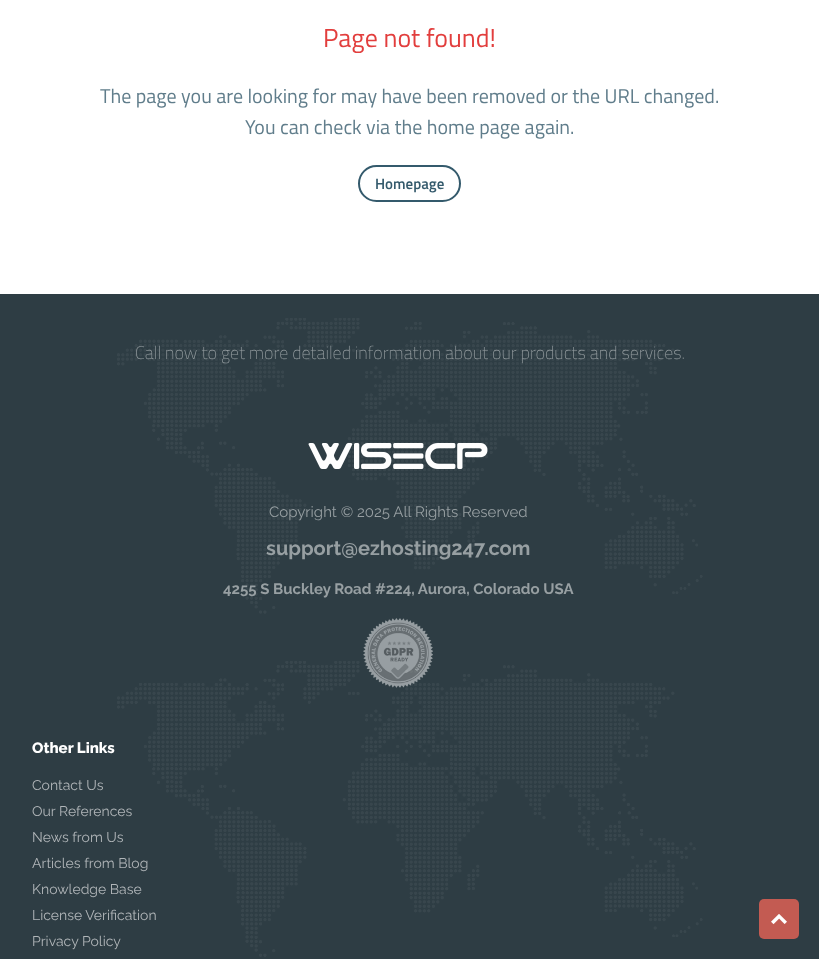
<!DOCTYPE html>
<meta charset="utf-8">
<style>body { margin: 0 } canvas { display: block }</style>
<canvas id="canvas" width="819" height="959"></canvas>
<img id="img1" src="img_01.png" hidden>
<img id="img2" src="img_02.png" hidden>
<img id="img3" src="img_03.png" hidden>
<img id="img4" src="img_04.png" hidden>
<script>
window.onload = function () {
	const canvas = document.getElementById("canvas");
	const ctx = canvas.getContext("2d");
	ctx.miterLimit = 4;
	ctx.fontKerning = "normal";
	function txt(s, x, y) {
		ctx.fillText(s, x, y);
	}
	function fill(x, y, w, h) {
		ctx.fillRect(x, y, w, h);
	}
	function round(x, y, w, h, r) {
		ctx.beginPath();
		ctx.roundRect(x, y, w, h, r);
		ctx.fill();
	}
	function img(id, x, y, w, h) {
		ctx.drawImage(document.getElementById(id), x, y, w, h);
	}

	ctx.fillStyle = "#FFFFFF";
	fill(0, 0, 819, 959);
	ctx.beginPath();
	ctx.roundRect(359, 166, 101, 35, 17.5);
	ctx.strokeStyle = "#345A6C";
	ctx.lineWidth = 2;
	ctx.stroke();
	ctx.fillStyle = "#2E3D44";
	fill(0, 294, 819, 665);
	img("img1", 117, 318, 586, 639);
	img("img2", 308, 443, 180, 26);
	img("img3", 363, 618, 70, 70);
	ctx.fillStyle = "#C35B52";
	round(759, 899, 40, 40, 5);
	img("img4", 771, 914, 16, 11);
	ctx.font = "26px Titillium Web";
	ctx.fillStyle = "#E23E3D";
	txt("Page not found!", 323, 47);
	ctx.font = "20px Titillium Web";
	ctx.fillStyle = "#607D8B";
	txt("The page you are looking for may have been removed or the URL changed.", 100, 103);
	txt("You can check via the home page again.", 245, 134);
	ctx.font = "600 15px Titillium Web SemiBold";
	ctx.fillStyle = "#345A6C";
	txt("Homepage", 375, 189);
	ctx.font = "200 18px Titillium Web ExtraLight";
	ctx.fillStyle = "#979FA2";
	txt("Call now to get more detailed information about our products and services.", 135, 359);
	ctx.font = "100 15px Raleway";
	txt("Copyright © 2025 All Rights Reserved", 269, 517);
	ctx.font = "100 20px 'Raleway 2'";
	txt("support@ezhosting247.com", 266, 555);
	ctx.font = "100 15px 'Raleway 2'";
	txt("4255 S Buckley Road #224, Aurora, Colorado USA", 223, 594);
	ctx.font = "100 15px 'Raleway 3'";
	ctx.fillStyle = "#FFFFFF";
	txt("Other Links", 32, 753);
	ctx.font = "100 14px Raleway";
	ctx.fillStyle = "#B0B5B8";
	txt("Contact Us", 32, 790);
	txt("Our References", 32, 816);
	txt("News from Us", 32, 842);
	txt("Articles from Blog", 32, 868);
	txt("Knowledge Base", 32, 894);
	txt("License Verification", 32, 920);
	txt("Privacy Policy", 32, 946);
};
</script>
